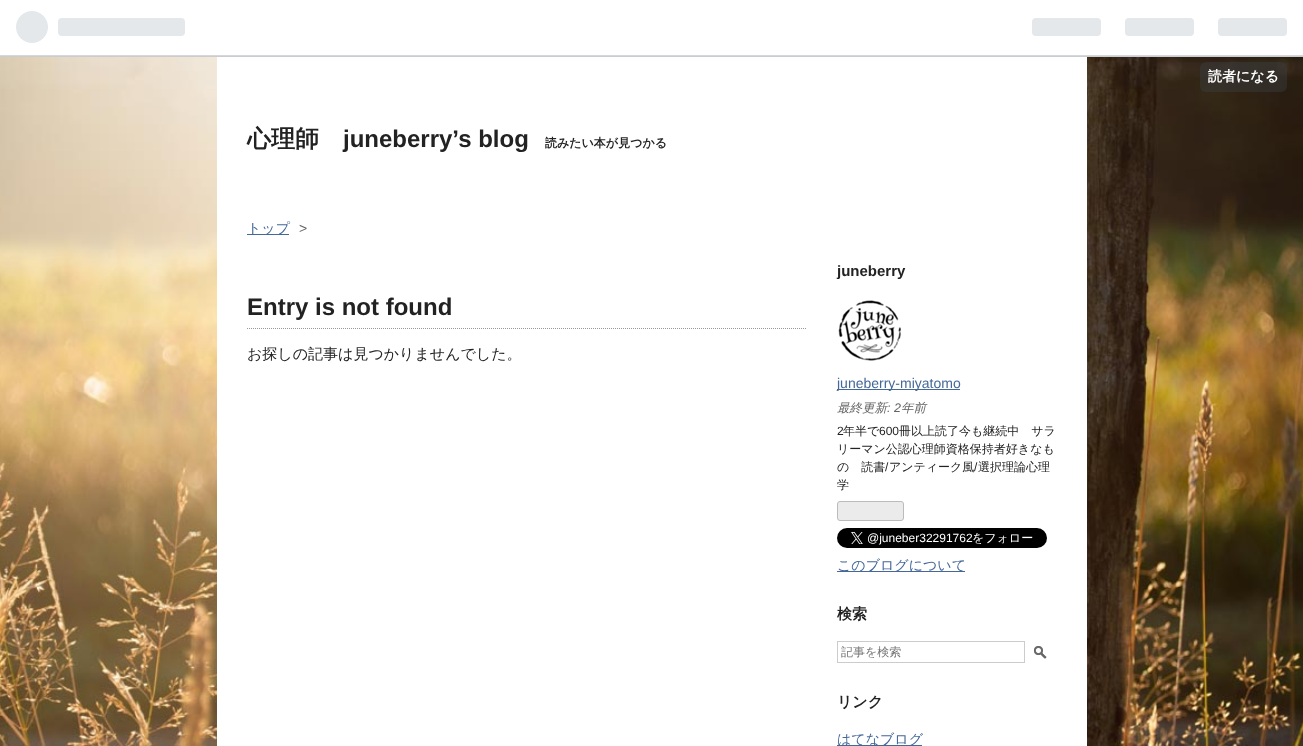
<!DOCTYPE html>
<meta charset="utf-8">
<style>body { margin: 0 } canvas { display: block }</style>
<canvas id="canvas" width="1303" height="746"></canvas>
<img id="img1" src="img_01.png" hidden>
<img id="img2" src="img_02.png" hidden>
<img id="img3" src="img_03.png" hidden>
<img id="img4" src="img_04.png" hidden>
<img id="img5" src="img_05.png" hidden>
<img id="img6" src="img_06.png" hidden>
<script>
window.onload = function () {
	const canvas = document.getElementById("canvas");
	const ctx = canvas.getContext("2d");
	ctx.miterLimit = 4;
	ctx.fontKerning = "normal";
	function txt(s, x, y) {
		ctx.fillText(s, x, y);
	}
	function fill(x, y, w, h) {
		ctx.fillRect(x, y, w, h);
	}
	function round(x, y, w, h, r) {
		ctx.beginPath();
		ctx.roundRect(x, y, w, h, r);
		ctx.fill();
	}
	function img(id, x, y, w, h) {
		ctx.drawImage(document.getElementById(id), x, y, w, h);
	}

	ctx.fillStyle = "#FFFFFF";
	fill(0, 0, 1303, 746);
	img("img1", 0, 57, 1303, 689);
	ctx.fillStyle = "#D2D8DD";
	fill(0, 55, 1303, 1);
	ctx.fillStyle = "#CCCCCC";
	fill(0, 56, 1303, 1);
	img("img2", 16, 11, 169, 32);
	img("img3", 1032, 18, 255, 18);
	ctx.fillStyle = "rgba(61, 66, 69, 0.4)";
	round(1200, 62, 87, 30, 6);
	ctx.fillStyle = "#FFFFFF";
	fill(217, 57, 870, 689);
	ctx.fillStyle = "#456898";
	fill(247, 234, 42, 1);
	ctx.beginPath();
	ctx.moveTo(247, 328.5);
	ctx.lineTo(807, 328.5);
	ctx.strokeStyle = "#999999";
	ctx.setLineDash([1, 1]);
	ctx.stroke();
	img("img4", 838, 300, 63, 61);
	fill(837, 389, 123, 1);
	ctx.fillStyle = "#EBEBEB";
	ctx.beginPath();
	ctx.roundRect(837.5, 501.5, 66, 19, 2.5);
	ctx.fill();
	ctx.strokeStyle = "#BBBBBB";
	ctx.setLineDash([]);
	ctx.stroke();
	ctx.fillStyle = "#000000";
	round(837, 528, 210, 20, 10);
	img("img5", 851, 532, 12, 12);
	ctx.fillStyle = "#456898";
	fill(837, 571, 128, 1);
	ctx.strokeStyle = "#CCCCCC";
	ctx.strokeRect(837.5, 641.5, 187, 21);
	img("img6", 1034, 646, 13, 13);
	fill(837, 745, 85, 1);
	ctx.font = "bold 14px WenQuanYi Zen Hei";
	ctx.fillStyle = "#FFFFFF";
	txt("読者になる", 1208, 81);
	ctx.font = "bold 24px WenQuanYi Zen Hei";
	ctx.fillStyle = "#222222";
	txt("心理師", 247, 147);
	ctx.font = "bold 24px Liberation Sans";
	txt("juneberry’s blog", 343, 147);
	ctx.font = "bold 12px WenQuanYi Zen Hei";
	txt("読みたい本が見つかる", 545, 147);
	ctx.font = "500 14px WenQuanYi Zen Hei";
	ctx.fillStyle = "#456898";
	txt("トップ", 247, 233);
	ctx.font = "14px Liberation Sans";
	ctx.fillStyle = "#646464";
	txt(">", 299, 233);
	ctx.font = "bold 24px Liberation Sans";
	ctx.fillStyle = "#222222";
	txt("Entry is not found", 247, 315);
	ctx.font = "500 15px WenQuanYi Zen Hei";
	txt("お探しの記事は見つかりませんでした。", 247, 359);
	ctx.font = "bold 15px Liberation Sans";
	txt("juneberry", 837, 276);
	ctx.font = "14px Liberation Sans";
	ctx.fillStyle = "#456898";
	txt("juneberry-miyatomo", 837, 388);
	ctx.font = "italic 500 12.5px WenQuanYi Zen Hei";
	ctx.fillStyle = "#646464";
	txt("最終更新", 837, 412);
	ctx.font = "italic 12.5px Liberation Sans";
	txt(": 2", 887, 412);
	ctx.font = "italic 500 12.5px WenQuanYi Zen Hei";
	txt("年前", 901, 412);
	ctx.font = "12px Liberation Sans";
	ctx.fillStyle = "#222222";
	txt("2", 837, 435);
	ctx.font = "500 12px WenQuanYi Zen Hei";
	txt("年半で", 843, 435);
	ctx.font = "12px Liberation Sans";
	txt("600", 879, 435);
	ctx.font = "500 12px WenQuanYi Zen Hei";
	txt("冊以上読了今も継続中　サラ", 899, 435);
	txt("リーマン公認心理師資格保持者好きなも", 837, 453);
	txt("の　読書 アンティーク風 選択理論心理", 837, 471);
	ctx.font = "12px Liberation Sans";
	txt("/", 885, 471);
	txt("/", 974, 471);
	ctx.font = "500 12px WenQuanYi Zen Hei";
	txt("学", 837, 489);
	ctx.font = "12px Liberation Sans";
	ctx.fillStyle = "#FFFFFF";
	txt("@juneber32291762", 867, 542);
	ctx.font = "500 12px WenQuanYi Zen Hei";
	txt("をフォロー", 972, 542);
	ctx.font = "500 14px WenQuanYi Zen Hei";
	ctx.fillStyle = "#456898";
	txt("このブログについて", 837, 570);
	ctx.font = "bold 15px WenQuanYi Zen Hei";
	ctx.fillStyle = "#222222";
	txt("検索", 837, 619);
	ctx.save();
	ctx.beginPath();
	ctx.rect(841, 644, 180, 17);
	ctx.clip();
	ctx.font = "500 12px WenQuanYi Zen Hei";
	ctx.fillStyle = "#757575";
	txt("記事を検索", 841, 656);
	ctx.restore();
	txt("リンク", 837, 707);
	ctx.font = "500 14px WenQuanYi Zen Hei";
	ctx.fillStyle = "#456898";
	txt("はてなブログ", 837, 744);
};
</script>
